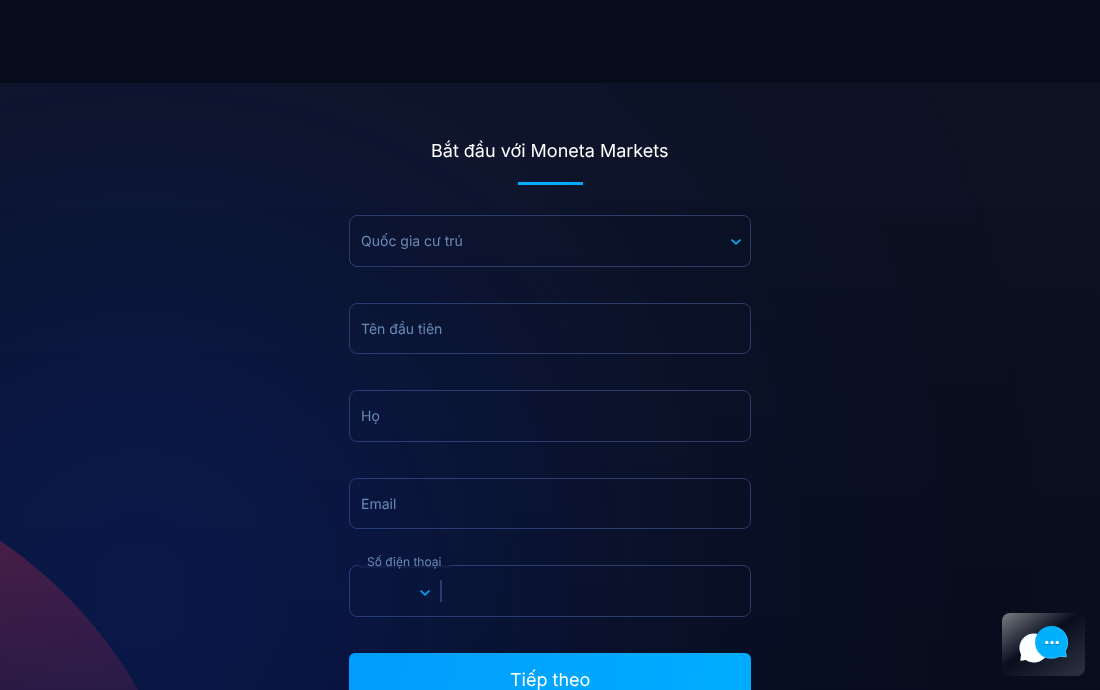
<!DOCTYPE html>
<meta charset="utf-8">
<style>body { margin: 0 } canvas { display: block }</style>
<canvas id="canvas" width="1100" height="690"></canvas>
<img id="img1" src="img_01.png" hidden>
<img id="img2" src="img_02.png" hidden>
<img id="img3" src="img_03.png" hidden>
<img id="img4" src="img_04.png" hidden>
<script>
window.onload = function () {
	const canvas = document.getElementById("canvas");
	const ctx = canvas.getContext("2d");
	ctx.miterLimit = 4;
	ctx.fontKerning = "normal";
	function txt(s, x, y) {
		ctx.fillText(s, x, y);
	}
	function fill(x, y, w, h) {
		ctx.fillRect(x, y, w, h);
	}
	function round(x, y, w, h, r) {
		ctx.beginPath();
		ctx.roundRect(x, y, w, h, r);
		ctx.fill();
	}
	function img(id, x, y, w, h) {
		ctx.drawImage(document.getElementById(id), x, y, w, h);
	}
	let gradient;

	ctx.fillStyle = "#0E1324";
	fill(0, 0, 1100, 690);
	img("img1", 0, 540, 138, 150);
	ctx.fillStyle = "#00B0FF";
	fill(518, 182, 65, 3);
	gradient = ctx.createLinearGradient(550, 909, 550, 0);
	gradient.addColorStop(0.04, "#070C1B");
	gradient.addColorStop(1, "rgba(7, 12, 27, 0)");
	ctx.fillStyle = gradient;
	fill(0, 207, 1100, 483);
	ctx.beginPath();
	ctx.roundRect(349.5, 215.5, 401, 51, 7.5);
	ctx.strokeStyle = "#2E3C61";
	ctx.stroke();
	img("img2", 731, 239, 10, 6);
	ctx.beginPath();
	ctx.roundRect(349.5, 303.5, 401, 50, 7.5);
	ctx.stroke();
	ctx.beginPath();
	ctx.roundRect(349.5, 390.5, 401, 51, 7.5);
	ctx.stroke();
	ctx.beginPath();
	ctx.roundRect(349.5, 478.5, 401, 50, 7.5);
	ctx.stroke();
	ctx.beginPath();
	ctx.roundRect(349.5, 565.5, 401, 51, 7.5);
	ctx.stroke();
	ctx.fillStyle = "#13192C";
	fill(359, 565, 90, 3);
	img("img3", 420, 590, 10, 6);
	ctx.fillStyle = "#2E3C61";
	fill(440, 580, 2, 22);
	ctx.fillStyle = "#00B0FF";
	round(349, 653, 402, 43, 6);
	ctx.fillStyle = "#0C3DEA";
	ctx.filter = "blur(300px)";
	ctx.beginPath();
	ctx.roundRect(-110, 447, 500, 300, 150);
	ctx.fill();
	ctx.filter = "none";
	ctx.fillStyle = "#070C1B";
	fill(0, 0, 1100, 83);
	gradient = ctx.createLinearGradient(1015, 604, 1072, 685);
	gradient.addColorStop(0, "#787B83");
	gradient.addColorStop(0.45, "#090E1E");
	gradient.addColorStop(0.8, "#212635");
	gradient.addColorStop(1, "#2E3240");
	ctx.fillStyle = gradient;
	round(1002, 613, 83, 63, 8);
	img("img4", 1019, 626, 50, 37);
	ctx.font = "18px Inter";
	ctx.fillStyle = "#FFFFFF";
	txt("Bắt đầu với Moneta Markets", 431, 157);
	ctx.font = "14px Inter";
	ctx.fillStyle = "#688AB7";
	txt("Quốc gia cư trú", 361, 246);
	txt("Tên đầu tiên", 361, 334);
	txt("Họ", 361, 421);
	txt("Email", 361, 509);
	ctx.font = "12px Inter";
	txt("Số điện thoại", 367, 566);
	ctx.font = "18px Inter";
	ctx.fillStyle = "#FFFFFF";
	txt("Tiếp theo", 510, 686);
};
</script>
